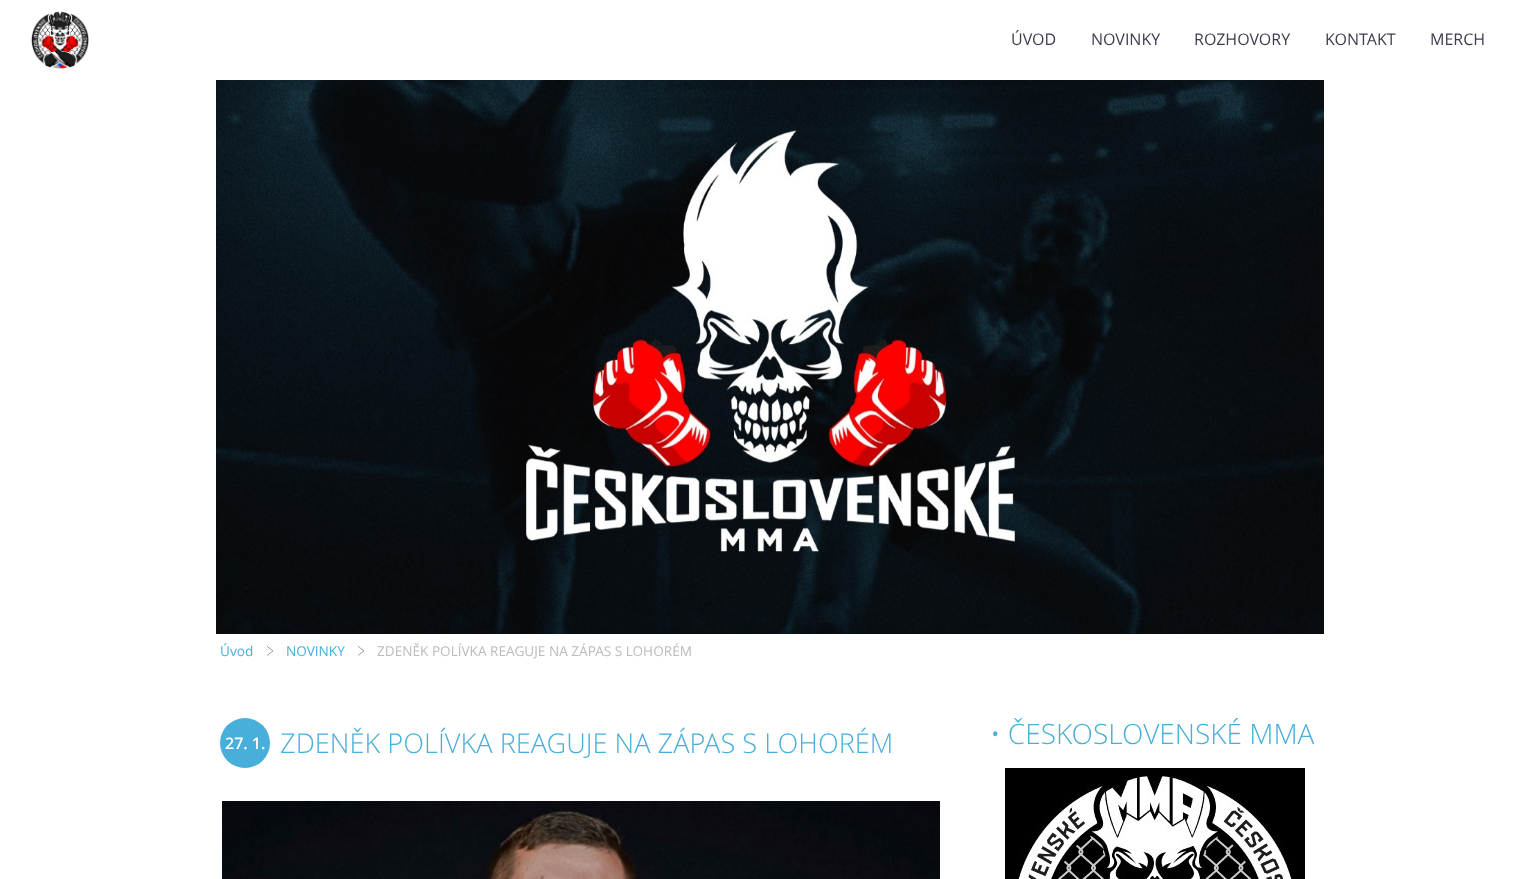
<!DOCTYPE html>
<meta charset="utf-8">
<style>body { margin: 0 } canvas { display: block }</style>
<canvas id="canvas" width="1540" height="879"></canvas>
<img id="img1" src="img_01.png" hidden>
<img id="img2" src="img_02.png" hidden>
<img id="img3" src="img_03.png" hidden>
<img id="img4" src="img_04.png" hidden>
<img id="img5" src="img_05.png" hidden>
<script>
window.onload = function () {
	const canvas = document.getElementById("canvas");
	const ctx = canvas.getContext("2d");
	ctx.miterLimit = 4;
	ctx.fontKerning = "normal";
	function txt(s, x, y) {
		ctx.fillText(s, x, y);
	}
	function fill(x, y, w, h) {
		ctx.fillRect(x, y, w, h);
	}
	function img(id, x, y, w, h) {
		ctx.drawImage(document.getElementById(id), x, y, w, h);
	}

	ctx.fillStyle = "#FFFFFF";
	fill(0, 0, 1540, 879);
	img("img1", 31, 11, 58, 58);
	img("img2", 216, 80, 1108, 554);
	img("img3", 267, 646, 6, 10);
	img("img3", 358, 646, 6, 10);
	ctx.fillStyle = "#48AFDB";
	ctx.beginPath();
	ctx.arc(245, 743, 25, 0, Math.PI * 2);
	ctx.fill();
	img("img4", 222, 801, 718, 78);
	img("img5", 1005, 768, 300, 111);
	ctx.font = "16px Open Sans";
	ctx.fillStyle = "#3B3E4F";
	txt("ÚVOD", 1011, 45);
	txt("NOVINKY", 1091, 45);
	txt("ROZHOVORY", 1194, 45);
	txt("KONTAKT", 1325, 45);
	txt("MERCH", 1430, 45);
	ctx.font = "13.6px Open Sans";
	ctx.fillStyle = "#48AFDB";
	txt("Úvod", 220, 656);
	txt("NOVINKY", 286, 656);
	ctx.fillStyle = "#BBBBBB";
	txt("ZDENĚK POLÍVKA REAGUJE NA ZÁPAS S LOHORÉM", 377, 656);
	ctx.font = "600 16px Open Sans";
	ctx.fillStyle = "#FFFFFF";
	txt("27. 1.", 225, 749);
	ctx.font = "300 27.2px Open Sans";
	ctx.fillStyle = "#48AFDB";
	txt("ZDENĚK POLÍVKA REAGUJE NA ZÁPAS S LOHORÉM", 280, 753);
	ctx.font = "300 28px Open Sans";
	txt("• ČESKOSLOVENSKÉ MMA", 990, 744);
};
</script>
